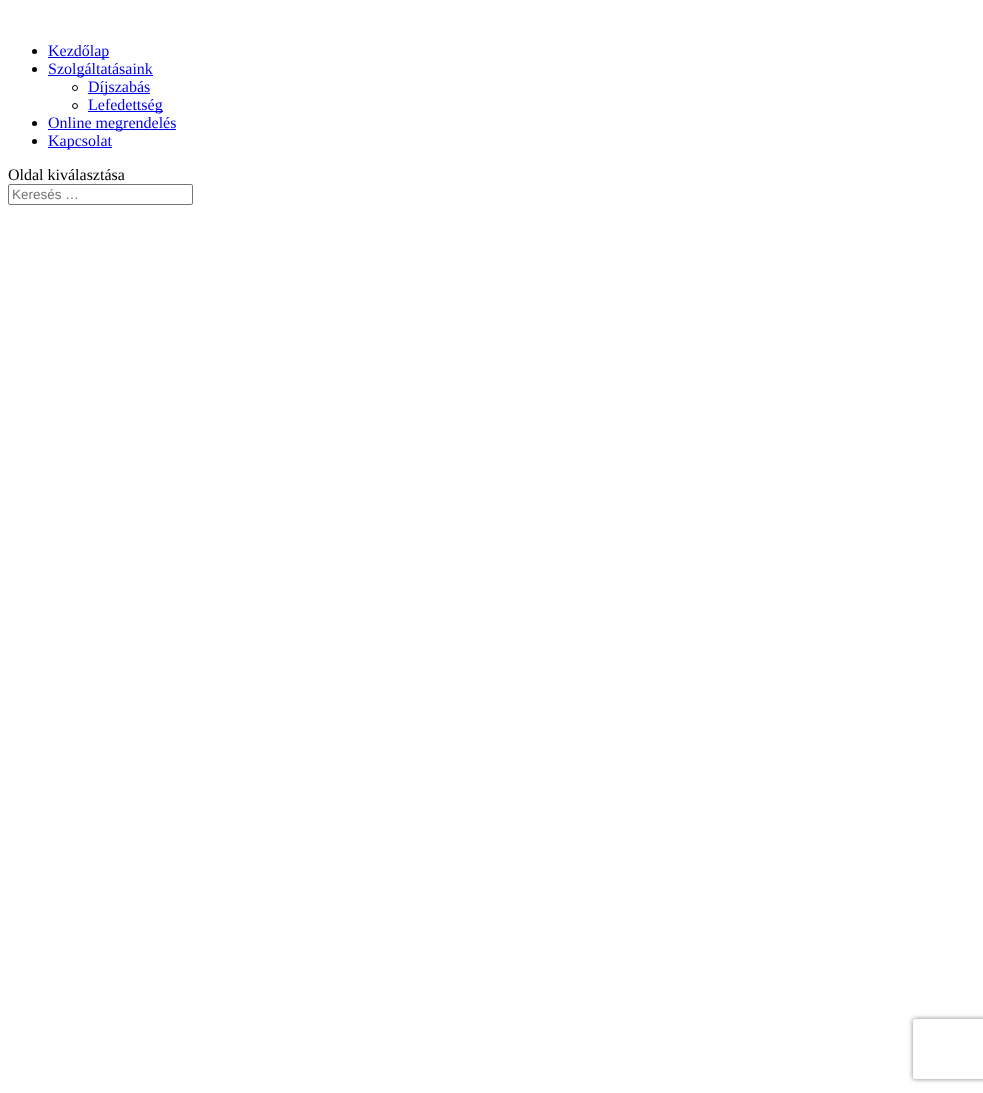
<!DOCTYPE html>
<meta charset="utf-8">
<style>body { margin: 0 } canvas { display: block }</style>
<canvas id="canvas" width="983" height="1093"></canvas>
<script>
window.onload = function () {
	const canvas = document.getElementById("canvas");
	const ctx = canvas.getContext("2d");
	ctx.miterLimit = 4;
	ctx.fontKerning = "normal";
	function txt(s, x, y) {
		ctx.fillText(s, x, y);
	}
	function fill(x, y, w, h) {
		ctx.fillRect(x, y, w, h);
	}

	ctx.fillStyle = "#FFFFFF";
	fill(0, 0, 983, 1093);
	ctx.fillStyle = "#000000";
	ctx.beginPath();
	ctx.arc(34.5, 51.5, 2.5, 0, Math.PI * 2);
	ctx.fill();
	ctx.fillStyle = "#0000EE";
	fill(48, 57, 61, 1);
	ctx.fillStyle = "#000000";
	ctx.beginPath();
	ctx.arc(34.5, 69.5, 2.5, 0, Math.PI * 2);
	ctx.fill();
	ctx.fillStyle = "#0000EE";
	fill(48, 75, 105, 1);
	ctx.beginPath();
	ctx.arc(75, 88, 2.5, 0, Math.PI * 2);
	ctx.strokeStyle = "#000000";
	ctx.stroke();
	fill(88, 93, 62, 1);
	ctx.beginPath();
	ctx.arc(75, 106, 2.5, 0, Math.PI * 2);
	ctx.stroke();
	fill(88, 111, 75, 1);
	ctx.fillStyle = "#000000";
	ctx.beginPath();
	ctx.arc(34.5, 123.5, 2.5, 0, Math.PI * 2);
	ctx.fill();
	ctx.fillStyle = "#0000EE";
	fill(48, 129, 128, 1);
	ctx.fillStyle = "#000000";
	ctx.beginPath();
	ctx.arc(34.5, 141.5, 2.5, 0, Math.PI * 2);
	ctx.fill();
	ctx.fillStyle = "#0000EE";
	fill(48, 147, 64, 1);
	ctx.beginPath();
	ctx.roundRect(8.5, 184.5, 184, 20, 1.5);
	ctx.strokeStyle = "#767676";
	ctx.stroke();
	ctx.save();
	ctx.beginPath();
	ctx.moveTo(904, 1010);
	ctx.lineTo(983, 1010);
	ctx.lineTo(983, 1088);
	ctx.lineTo(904, 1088);
	ctx.closePath();
	ctx.moveTo(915, 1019);
	ctx.lineTo(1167, 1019);
	ctx.bezierCurveTo(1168, 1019, 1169, 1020, 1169, 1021);
	ctx.lineTo(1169, 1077);
	ctx.bezierCurveTo(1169, 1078, 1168, 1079, 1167, 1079);
	ctx.lineTo(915, 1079);
	ctx.bezierCurveTo(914, 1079, 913, 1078, 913, 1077);
	ctx.lineTo(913, 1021);
	ctx.bezierCurveTo(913, 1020, 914, 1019, 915, 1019);
	ctx.closePath();
	ctx.clip("evenodd");
	ctx.fillStyle = "#808080";
	ctx.filter = "blur(2.5px)";
	ctx.beginPath();
	ctx.roundRect(913, 1019, 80, 60, 2);
	ctx.fill();
	ctx.filter = "none";
	ctx.restore();
	ctx.font = "16px Liberation Serif";
	txt("Kezdőlap", 48, 56);
	txt("Szolgáltatásaink", 48, 74);
	txt("Díjszabás", 88, 92);
	txt("Lefedettség", 88, 110);
	txt("Online megrendelés", 48, 128);
	txt("Kapcsolat", 48, 146);
	ctx.fillStyle = "#000000";
	txt("Oldal kiválasztása", 8, 180);
	ctx.font = "13.5px Liberation Sans";
	ctx.fillStyle = "#757575";
	txt("Keresés …", 12, 199);
};
</script>
